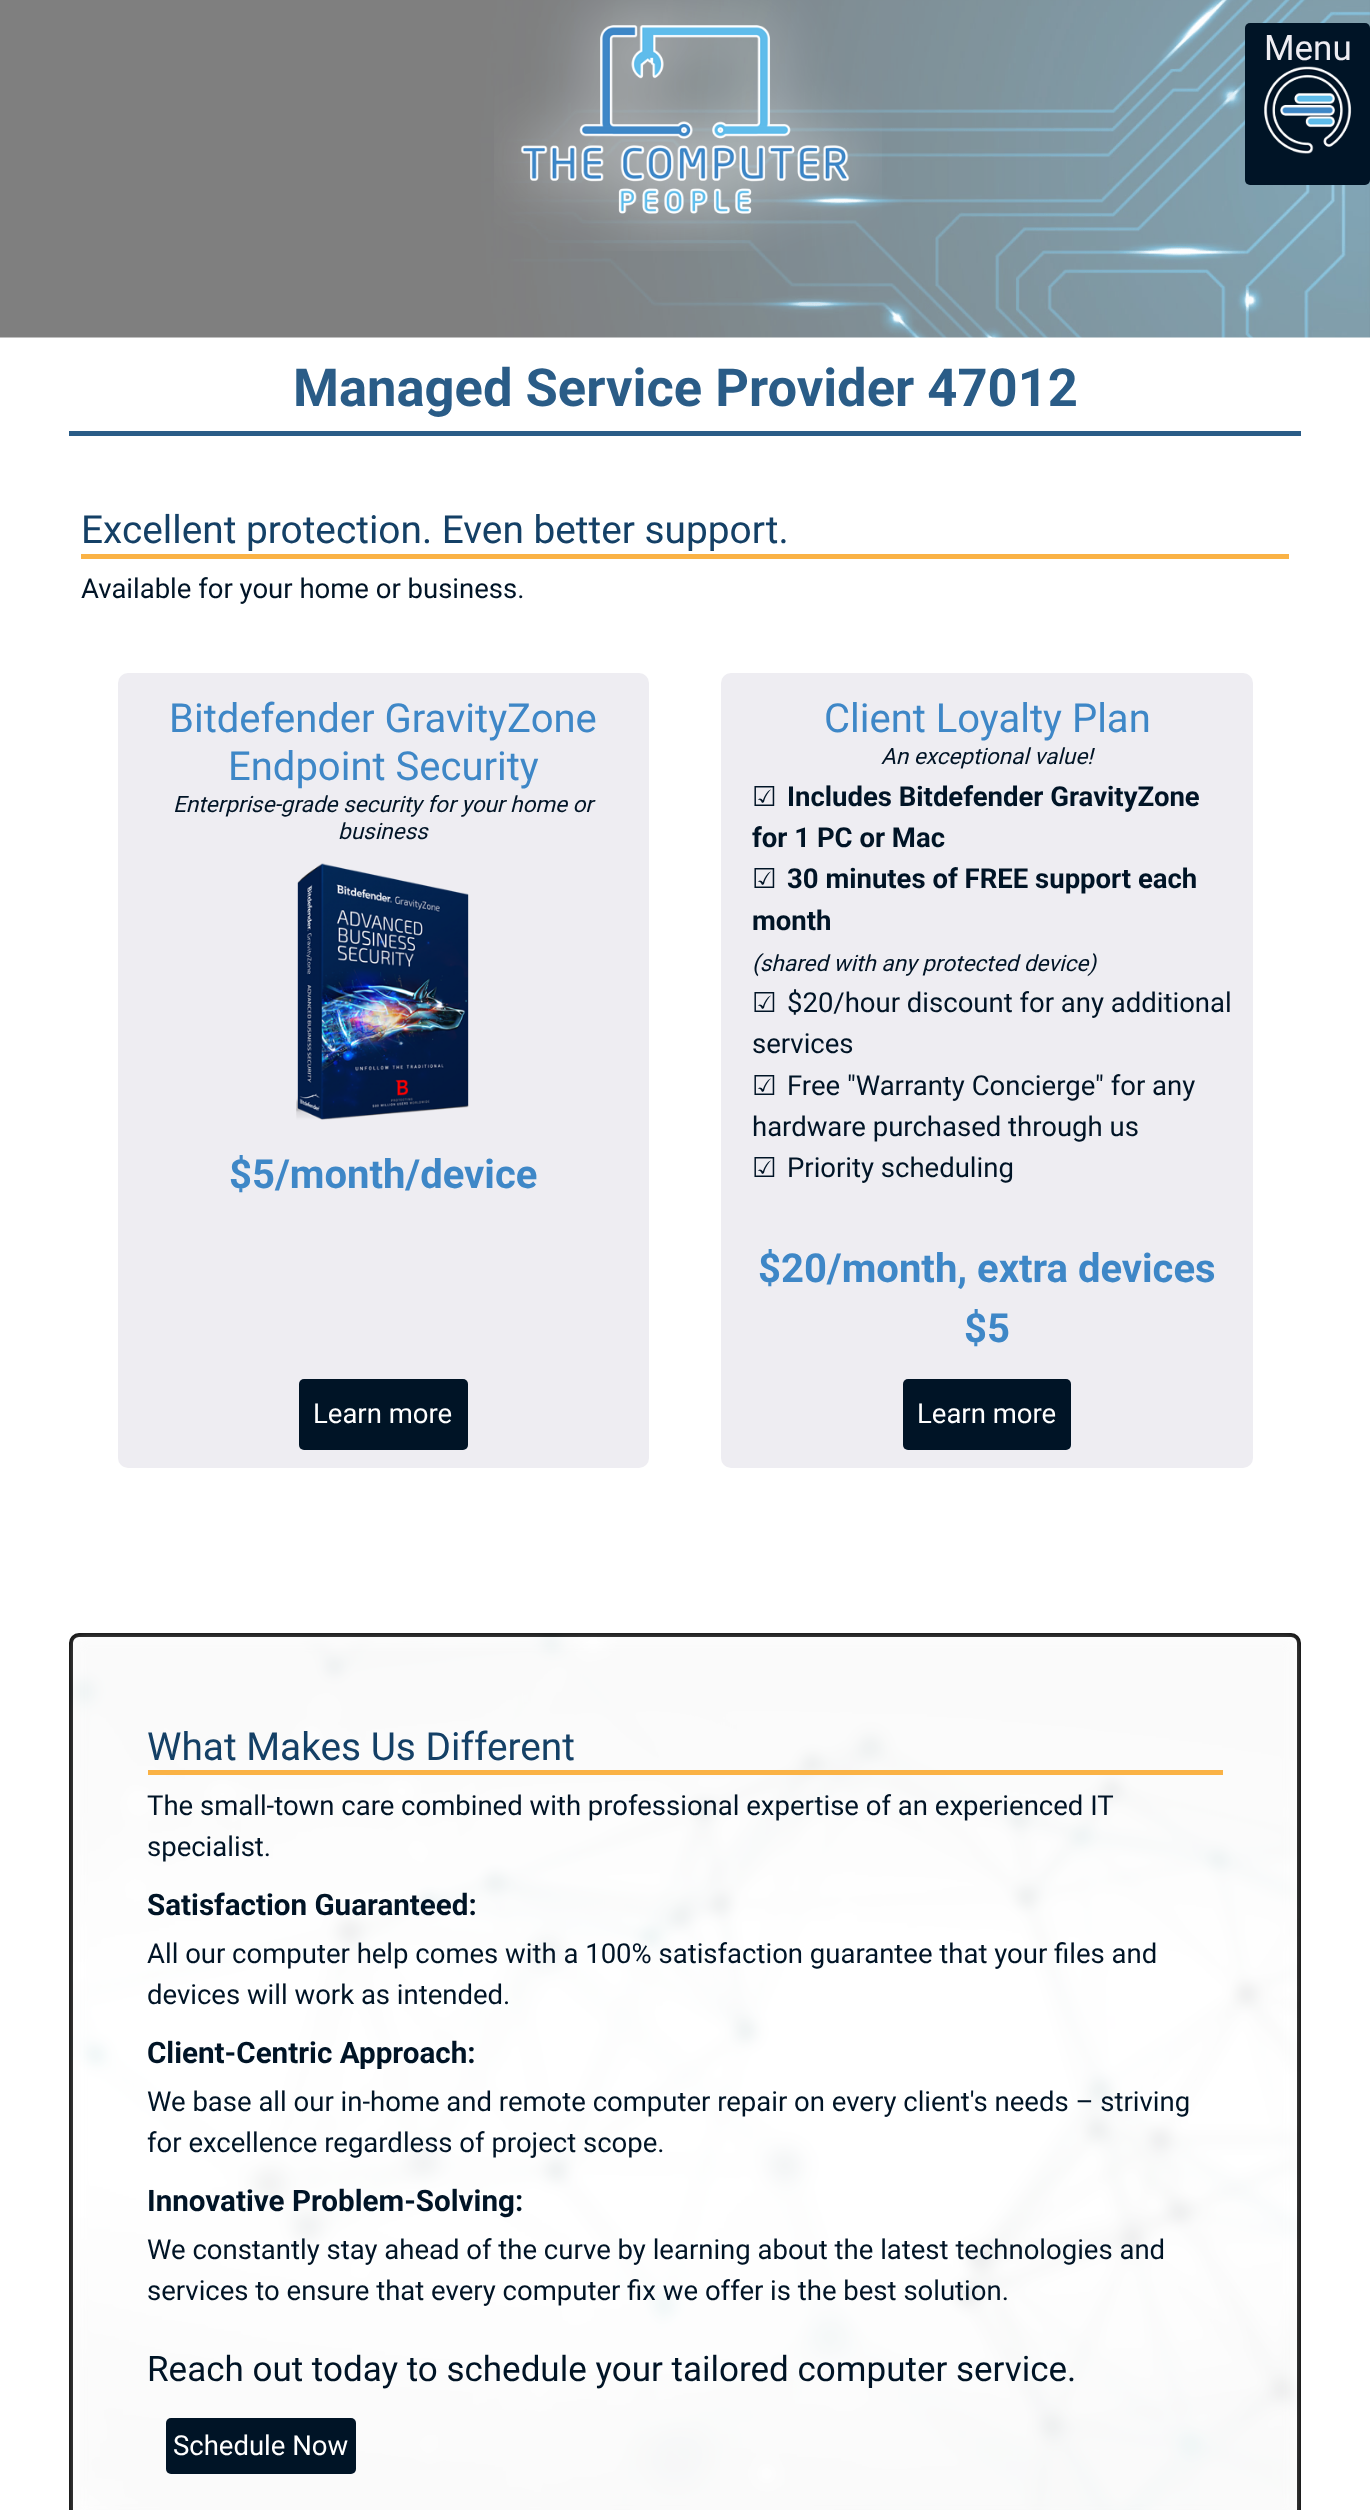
<!DOCTYPE html>
<meta charset="utf-8">
<style>body { margin: 0 } canvas { display: block }</style>
<canvas id="canvas" width="1370" height="2510"></canvas>
<img id="img1" src="img_01.png" hidden>
<img id="img2" src="img_02.png" hidden>
<img id="img3" src="img_03.png" hidden>
<img id="img4" src="img_04.png" hidden>
<img id="img5" src="img_05.png" hidden>
<script>
window.onload = function () {
	const canvas = document.getElementById("canvas");
	const ctx = canvas.getContext("2d");
	ctx.miterLimit = 4;
	ctx.fontKerning = "normal";
	function txt(s, x, y) {
		ctx.fillText(s, x, y);
	}
	function fill(x, y, w, h) {
		ctx.fillRect(x, y, w, h);
	}
	function round(x, y, w, h, r) {
		ctx.beginPath();
		ctx.roundRect(x, y, w, h, r);
		ctx.fill();
	}
	function img(id, x, y, w, h) {
		ctx.drawImage(document.getElementById(id), x, y, w, h);
	}

	ctx.fillStyle = "#FFFFFF";
	fill(0, 0, 1370, 2510);
	img("img1", 0, 0, 1370, 338);
	img("img2", 494, 0, 388, 251);
	ctx.fillStyle = "#001426";
	round(1245, 23, 125, 162, 5);
	img("img3", 1264, 66, 88, 88);
	ctx.fillStyle = "#2A5C87";
	fill(69, 431, 1232, 5);
	ctx.fillStyle = "#FAB245";
	fill(81, 554, 1208, 5);
	ctx.fillStyle = "#EEEDF2";
	round(118, 673, 531, 795, 10);
	img("img4", 296, 863, 173, 257);
	ctx.fillStyle = "#001426";
	round(299, 1379, 169, 71, 5);
	ctx.fillStyle = "#EEEDF2";
	round(721, 673, 532, 795, 10);
	ctx.fillStyle = "#001426";
	round(903, 1379, 168, 71, 5);
	ctx.beginPath();
	ctx.roundRect(71, 1635, 1228, 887, 8);
	ctx.strokeStyle = "#000000";
	ctx.lineWidth = 4;
	ctx.stroke();
	img("img5", 69, 1633, 1232, 877);
	ctx.fillStyle = "#FAB245";
	fill(148, 1770, 1075, 5);
	ctx.fillStyle = "#001426";
	round(166, 2418, 190, 56, 5);
	ctx.font = "35px Roboto";
	ctx.fillStyle = "#EEEDF2";
	txt("Menu", 1264, 60);
	ctx.font = "bold 52.5px Roboto";
	ctx.fillStyle = "#2A5C87";
	txt("Managed Service Provider 47012", 293, 406);
	ctx.font = "38.8px Roboto";
	ctx.fillStyle = "#144066";
	txt("Excellent protection. Even better support.", 81, 543);
	ctx.font = "27.5px Roboto";
	ctx.fillStyle = "#001426";
	txt("Available for your home or business.", 81, 598);
	ctx.font = "40px Roboto";
	ctx.fillStyle = "#3E87C7";
	txt("Bitdefender GravityZone", 169, 732);
	txt("Endpoint Security", 228, 780);
	ctx.font = "italic 22.5px Roboto";
	ctx.fillStyle = "#001426";
	txt("Enterprise-grade security for your home or", 173, 812);
	txt("business", 338, 839);
	ctx.font = "bold 40px Roboto";
	ctx.fillStyle = "#3E87C7";
	txt("$5/month/device", 229, 1188);
	ctx.font = "27.5px Roboto";
	ctx.fillStyle = "#FFFFFF";
	txt("Learn more", 313, 1423);
	ctx.font = "40px Roboto";
	ctx.fillStyle = "#3E87C7";
	txt("Client Loyalty Plan", 824, 732);
	ctx.font = "italic 22.5px Roboto";
	ctx.fillStyle = "#001426";
	txt("An exceptional value!", 881, 764);
	ctx.font = "27.5px DejaVu Sans";
	txt("☑", 752, 806);
	ctx.font = "bold 27.5px Roboto";
	txt("Includes Bitdefender GravityZone", 787, 806);
	txt("for 1 PC or Mac", 752, 847);
	ctx.font = "27.5px DejaVu Sans";
	txt("☑", 752, 888);
	ctx.font = "bold 27.5px Roboto";
	txt("30 minutes of FREE support each", 787, 888);
	txt("month", 752, 930);
	ctx.font = "italic 22.5px Roboto";
	txt("(shared with any protected device)", 752, 971);
	ctx.font = "27.5px DejaVu Sans";
	txt("☑", 752, 1012);
	ctx.font = "27.5px Roboto";
	txt("$20/hour discount for any additional", 787, 1012);
	txt("services", 752, 1053);
	ctx.font = "27.5px DejaVu Sans";
	txt("☑", 752, 1095);
	ctx.font = "27.5px Roboto";
	txt("Free \"Warranty Concierge\" for any", 787, 1095);
	txt("hardware purchased through us", 752, 1136);
	ctx.font = "27.5px DejaVu Sans";
	txt("☑", 752, 1177);
	ctx.font = "27.5px Roboto";
	txt("Priority scheduling", 787, 1177);
	ctx.font = "bold 40px Roboto";
	ctx.fillStyle = "#3E87C7";
	txt("$20/month, extra devices", 758, 1282);
	txt("$5", 964, 1342);
	ctx.font = "27.5px Roboto";
	ctx.fillStyle = "#FFFFFF";
	txt("Learn more", 917, 1423);
	ctx.font = "38.8px Roboto";
	ctx.fillStyle = "#144066";
	txt("What Makes Us Different", 147, 1760);
	ctx.font = "27.5px Roboto";
	ctx.fillStyle = "#001426";
	txt("The small-town care combined with professional expertise of an experienced IT", 147, 1815);
	txt("specialist.", 147, 1856);
	ctx.font = "bold 29.6px Roboto";
	txt("Satisfaction Guaranteed:", 147, 1915);
	ctx.font = "27.5px Roboto";
	txt("All our computer help comes with a 100% satisfaction guarantee that your files and", 147, 1963);
	txt("devices will work as intended.", 147, 2004);
	ctx.font = "bold 29.6px Roboto";
	txt("Client-Centric Approach:", 147, 2063);
	ctx.font = "27.5px Roboto";
	txt("We base all our in-home and remote computer repair on every client's needs – striving", 147, 2111);
	txt("for excellence regardless of project scope.", 147, 2152);
	ctx.font = "bold 29.6px Roboto";
	txt("Innovative Problem-Solving:", 147, 2211);
	ctx.font = "27.5px Roboto";
	txt("We constantly stay ahead of the curve by learning about the latest technologies and", 147, 2259);
	txt("services to ensure that every computer fix we offer is the best solution.", 147, 2300);
	ctx.font = "35px Roboto";
	txt("Reach out today to schedule your tailored computer service.", 147, 2381);
	ctx.font = "27.5px Roboto";
	ctx.fillStyle = "#FFFFFF";
	txt("Schedule Now", 173, 2455);
};
</script>
